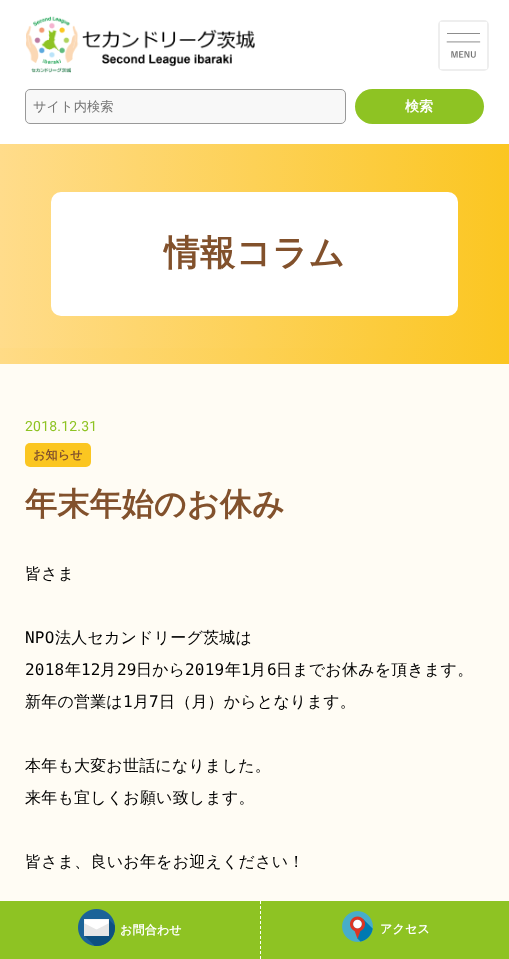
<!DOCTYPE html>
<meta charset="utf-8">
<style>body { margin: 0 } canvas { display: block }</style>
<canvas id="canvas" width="509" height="959"></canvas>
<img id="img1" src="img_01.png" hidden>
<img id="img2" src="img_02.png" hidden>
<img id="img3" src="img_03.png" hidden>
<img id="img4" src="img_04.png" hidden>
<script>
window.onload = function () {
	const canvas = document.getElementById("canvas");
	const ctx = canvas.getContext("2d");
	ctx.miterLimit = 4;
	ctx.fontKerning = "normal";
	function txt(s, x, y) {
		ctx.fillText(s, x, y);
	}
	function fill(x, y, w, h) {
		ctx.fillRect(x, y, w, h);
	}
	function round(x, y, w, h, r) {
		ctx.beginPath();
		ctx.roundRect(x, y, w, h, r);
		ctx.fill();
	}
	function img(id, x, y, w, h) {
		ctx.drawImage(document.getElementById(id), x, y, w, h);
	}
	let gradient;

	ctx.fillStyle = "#FFFFFF";
	fill(0, 0, 509, 959);
	ctx.fillStyle = "#FFFCF4";
	fill(0, 364, 509, 537);
	img("img1", 26, 16, 229, 57);
	ctx.beginPath();
	ctx.roundRect(439, 21, 49, 49, 4);
	ctx.strokeStyle = "#EEEEEE";
	ctx.lineWidth = 2;
	ctx.stroke();
	ctx.fillStyle = "#FFFFFF";
	fill(440, 22, 47, 47);
	img("img2", 446, 31, 35, 29);
	ctx.fillStyle = "#F8F8F8";
	ctx.beginPath();
	ctx.roundRect(25.5, 89.5, 320, 34, 4.5);
	ctx.fill();
	ctx.strokeStyle = "#999999";
	ctx.lineWidth = 1;
	ctx.stroke();
	ctx.fillStyle = "#8EC323";
	round(355, 89, 129, 35, 17.5);
	gradient = ctx.createLinearGradient(0, 254, 509, 254);
	gradient.addColorStop(0, "#FFDC8B");
	gradient.addColorStop(1, "#FBC621");
	ctx.fillStyle = gradient;
	fill(0, 144, 509, 204);
	gradient = ctx.createLinearGradient(0, 254, 509, 254);
	gradient.addColorStop(0, "#FFDB86");
	gradient.addColorStop(1, "#FBC621");
	ctx.fillStyle = gradient;
	fill(0, 348, 509, 16);
	ctx.fillStyle = "#FFFFFF";
	round(51, 192, 407, 124, 10);
	ctx.fillStyle = "#FBC621";
	round(25, 443, 66, 24, 5);
	ctx.fillStyle = "#8EC323";
	fill(0, 901, 509, 58);
	ctx.beginPath();
	ctx.moveTo(260.5, 901);
	ctx.lineTo(260.5, 959);
	ctx.strokeStyle = "#FFFFFF";
	ctx.setLineDash([3, 2]);
	ctx.stroke();
	img("img3", 78, 909, 37, 37);
	img("img4", 342, 911, 31, 31);
	ctx.font = "500 13.25px WenQuanYi Zen Hei";
	ctx.fillStyle = "#757575";
	txt("サイト内検索", 33, 111);
	ctx.font = "bold 14px WenQuanYi Zen Hei";
	ctx.fillStyle = "#FFFFFF";
	txt("検索", 405, 111);
	ctx.letterSpacing = "0.2px";
	ctx.font = "bold 35.5px WenQuanYi Zen Hei";
	ctx.fillStyle = "#82512C";
	txt("情報コラム", 164, 265);
	ctx.font = "14px Roboto";
	ctx.fillStyle = "#8EC323";
	txt("2018.12.31", 25, 431);
	ctx.font = "bold 12px WenQuanYi Zen Hei";
	ctx.fillStyle = "#82512C";
	txt("お知らせ", 33, 459);
	ctx.font = "bold 32px WenQuanYi Zen Hei";
	txt("年末年始のお休み", 25, 515);
	ctx.font = "500 16px WenQuanYi Zen Hei";
	ctx.fillStyle = "#000000";
	txt("皆さま", 25, 579);
	ctx.font = "16px DejaVu Sans Mono";
	txt("NPO", 25, 643);
	ctx.font = "500 16px WenQuanYi Zen Hei";
	txt("法人セカンドリーグ茨城は", 55, 643);
	ctx.font = "16px DejaVu Sans Mono";
	txt("2018", 25, 675);
	ctx.font = "500 16px WenQuanYi Zen Hei";
	txt("年", 65, 675);
	ctx.font = "16px DejaVu Sans Mono";
	txt("12", 81, 675);
	ctx.font = "500 16px WenQuanYi Zen Hei";
	txt("月", 100, 675);
	ctx.font = "16px DejaVu Sans Mono";
	txt("29", 117, 675);
	ctx.font = "500 16px WenQuanYi Zen Hei";
	txt("日から", 136, 675);
	ctx.font = "16px DejaVu Sans Mono";
	txt("2019", 185, 675);
	ctx.font = "500 16px WenQuanYi Zen Hei";
	txt("年", 225, 675);
	ctx.font = "16px DejaVu Sans Mono";
	txt("1", 241, 675);
	ctx.font = "500 16px WenQuanYi Zen Hei";
	txt("月", 250, 675);
	ctx.font = "16px DejaVu Sans Mono";
	txt("6", 267, 675);
	ctx.font = "500 16px WenQuanYi Zen Hei";
	txt("日までお休みを頂きます。", 276, 675);
	txt("新年の営業は", 25, 707);
	ctx.font = "16px DejaVu Sans Mono";
	txt("1", 123, 707);
	ctx.font = "500 16px WenQuanYi Zen Hei";
	txt("月", 133, 707);
	ctx.font = "16px DejaVu Sans Mono";
	txt("7", 149, 707);
	ctx.font = "500 16px WenQuanYi Zen Hei";
	txt("日（月）からとなります。", 159, 707);
	txt("本年も大変お世話になりました。", 25, 771);
	txt("来年も宜しくお願い致します。", 25, 803);
	txt("皆さま、良いお年をお迎えください！", 25, 867);
	ctx.font = "bold 12px WenQuanYi Zen Hei";
	ctx.fillStyle = "#FFFFFF";
	txt("お問合わせ", 120, 934);
	txt("アクセス", 380, 933);
};
</script>
